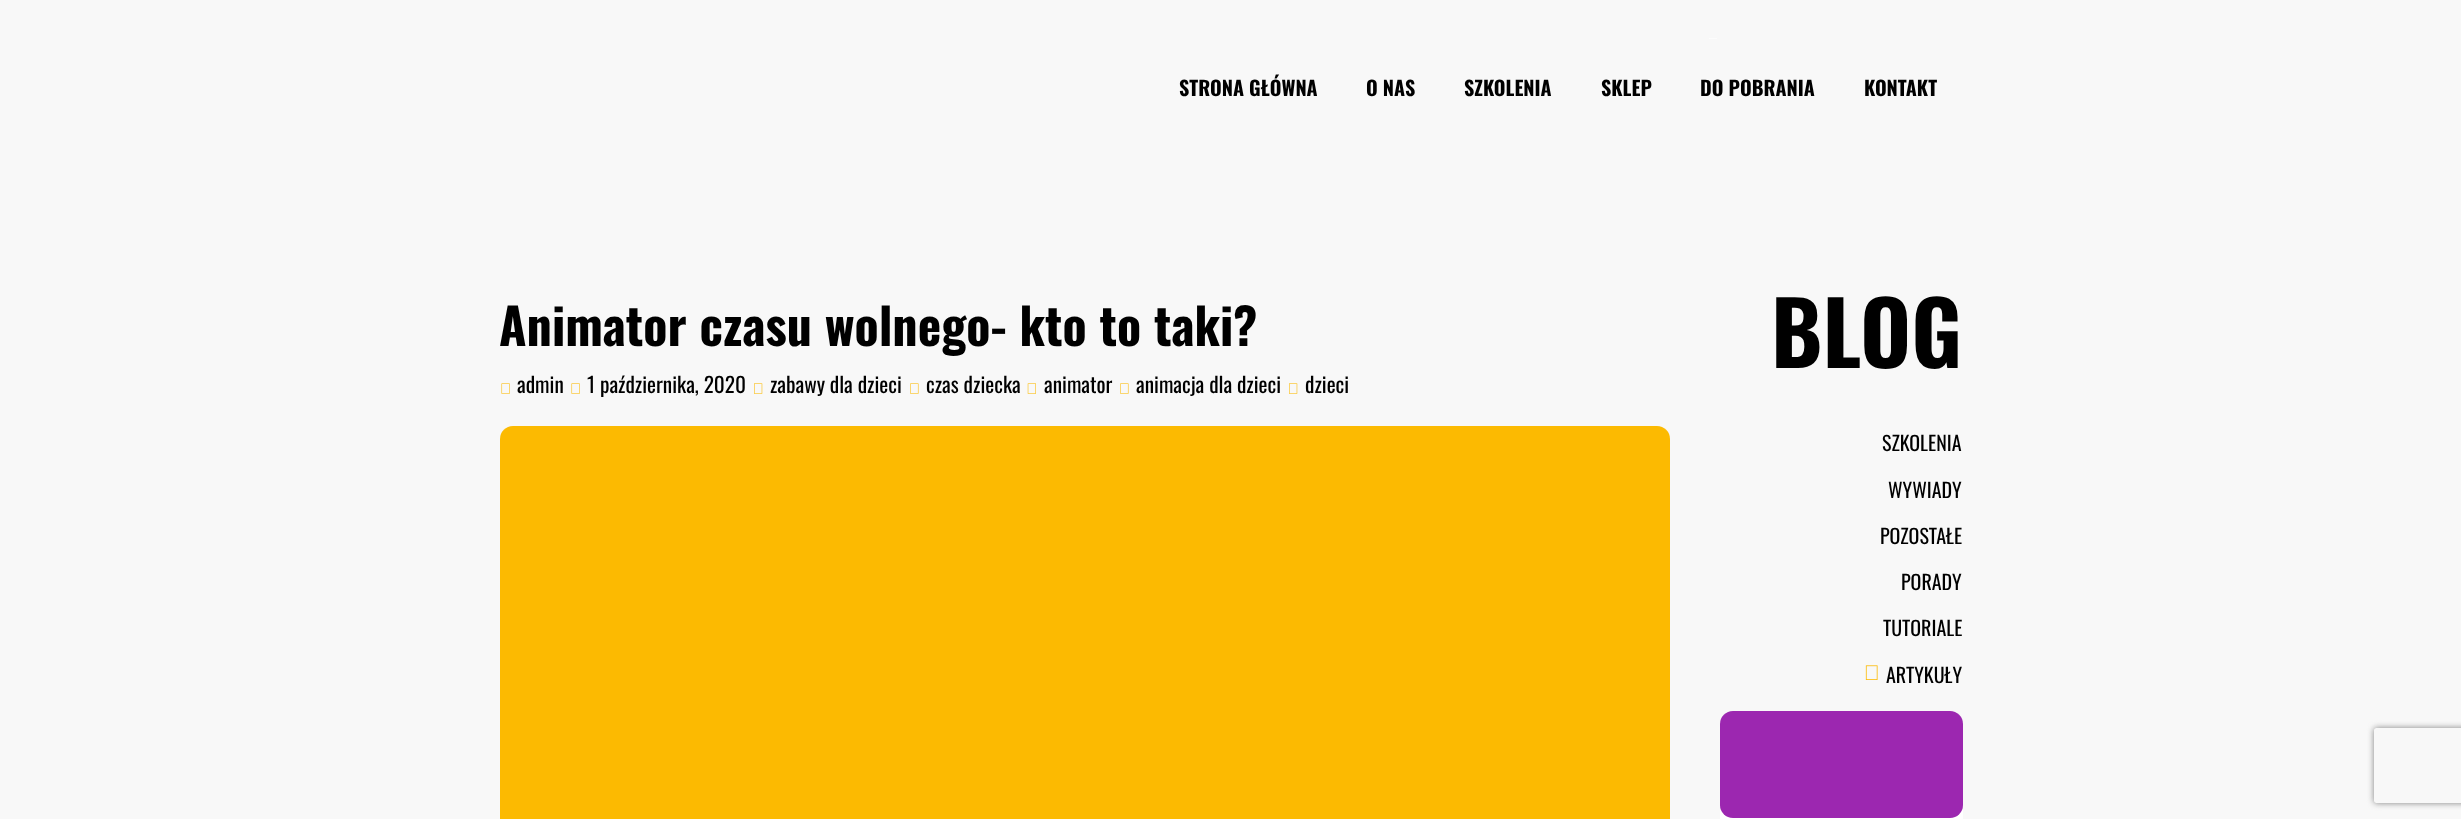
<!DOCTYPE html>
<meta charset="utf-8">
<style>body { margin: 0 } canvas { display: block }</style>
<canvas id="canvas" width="2461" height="819"></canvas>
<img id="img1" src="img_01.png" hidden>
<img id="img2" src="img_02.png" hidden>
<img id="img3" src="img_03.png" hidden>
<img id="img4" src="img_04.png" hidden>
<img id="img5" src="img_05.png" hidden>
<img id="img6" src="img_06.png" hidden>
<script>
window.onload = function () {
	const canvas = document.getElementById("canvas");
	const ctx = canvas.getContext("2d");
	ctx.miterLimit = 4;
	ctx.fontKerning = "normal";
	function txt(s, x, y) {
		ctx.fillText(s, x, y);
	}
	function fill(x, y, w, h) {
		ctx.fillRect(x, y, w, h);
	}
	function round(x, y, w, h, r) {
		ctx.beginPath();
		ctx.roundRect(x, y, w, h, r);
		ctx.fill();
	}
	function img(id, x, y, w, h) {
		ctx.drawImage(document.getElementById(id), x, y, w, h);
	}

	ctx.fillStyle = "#F8F8F8";
	fill(0, 0, 2461, 819);
	img("img1", 1709, 38, 8, 1);
	img("img2", 501, 383, 9, 11);
	img("img2", 571, 383, 9, 11);
	img("img3", 754, 383, 9, 11);
	img("img4", 910, 383, 9, 11);
	img("img5", 1027, 383, 9, 11);
	img("img4", 1120, 383, 9, 11);
	img("img3", 1289, 383, 9, 11);
	ctx.fillStyle = "#FCBA01";
	round(500, 426, 1170, 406, 13);
	img("img6", 1865, 665, 13, 15);
	ctx.fillStyle = "#FFFFFF";
	fill(1720, 810, 243, 9);
	ctx.fillStyle = "#9C27B0";
	round(1720, 711, 243, 107, 13);
	ctx.save();
	ctx.beginPath();
	ctx.moveTo(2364, 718);
	ctx.lineTo(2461, 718);
	ctx.lineTo(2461, 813);
	ctx.lineTo(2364, 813);
	ctx.closePath();
	ctx.moveTo(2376.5, 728);
	ctx.lineTo(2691.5, 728);
	ctx.bezierCurveTo(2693, 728, 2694, 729, 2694, 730.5);
	ctx.lineTo(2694, 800.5);
	ctx.bezierCurveTo(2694, 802, 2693, 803, 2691.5, 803);
	ctx.lineTo(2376.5, 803);
	ctx.bezierCurveTo(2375, 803, 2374, 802, 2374, 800.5);
	ctx.lineTo(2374, 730.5);
	ctx.bezierCurveTo(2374, 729, 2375, 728, 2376.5, 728);
	ctx.closePath();
	ctx.clip("evenodd");
	ctx.fillStyle = "#808080";
	ctx.filter = "blur(3px)";
	ctx.beginPath();
	ctx.roundRect(2374, 728, 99, 75, 2.5);
	ctx.fill();
	ctx.filter = "none";
	ctx.restore();
	ctx.font = "bold 20px Oswald";
	ctx.fillStyle = "#000000";
	txt("STRONA GŁÓWNA", 1179, 96);
	txt("O NAS", 1366, 96);
	txt("SZKOLENIA", 1464, 96);
	txt("SKLEP", 1601, 96);
	txt("DO POBRANIA", 1700, 96);
	txt("KONTAKT", 1864, 96);
	ctx.font = "bold 50px Oswald";
	txt("Animator czasu wolnego- kto to taki?", 499, 346);
	ctx.font = "21.25px Oswald";
	txt("admin", 517, 393);
	txt("1 października, 2020", 587, 393);
	txt("zabawy dla dzieci", 770, 393);
	txt("czas dziecka", 926, 393);
	txt("animator", 1044, 393);
	txt("animacja dla dzieci", 1136, 393);
	txt("dzieci", 1305, 393);
	ctx.font = "bold 87.5px Oswald";
	txt("BLOG", 1771, 368);
	ctx.font = "20px Oswald";
	txt("SZKOLENIA", 1882, 451);
	txt("WYWIADY", 1888, 498);
	txt("POZOSTAŁE", 1880, 544);
	txt("PORADY", 1901, 590);
	txt("TUTORIALE", 1883, 636);
	txt("ARTYKUŁY", 1886, 683);
};
</script>
